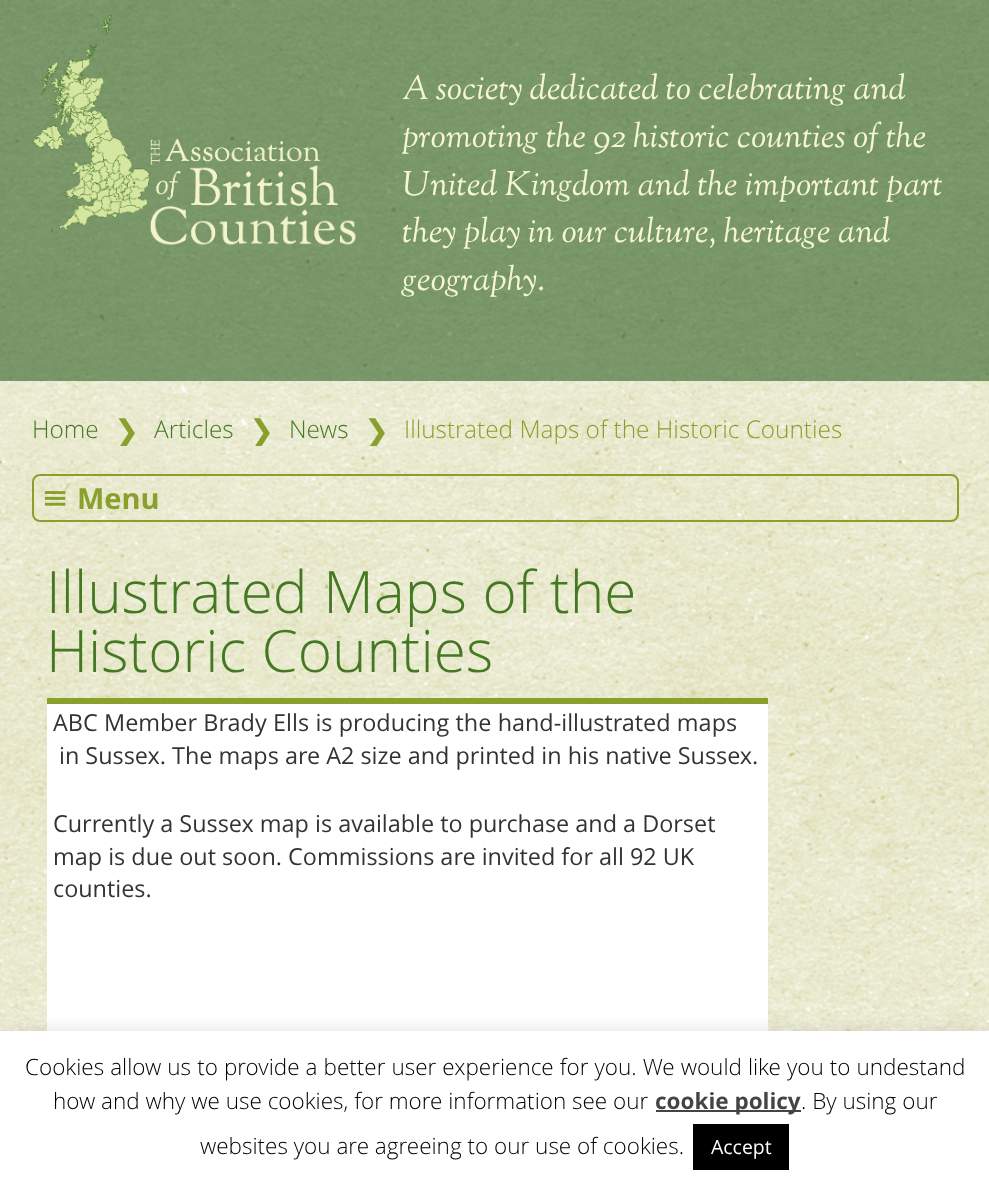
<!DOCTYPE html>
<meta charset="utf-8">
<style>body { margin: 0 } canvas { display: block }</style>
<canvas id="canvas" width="989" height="1188"></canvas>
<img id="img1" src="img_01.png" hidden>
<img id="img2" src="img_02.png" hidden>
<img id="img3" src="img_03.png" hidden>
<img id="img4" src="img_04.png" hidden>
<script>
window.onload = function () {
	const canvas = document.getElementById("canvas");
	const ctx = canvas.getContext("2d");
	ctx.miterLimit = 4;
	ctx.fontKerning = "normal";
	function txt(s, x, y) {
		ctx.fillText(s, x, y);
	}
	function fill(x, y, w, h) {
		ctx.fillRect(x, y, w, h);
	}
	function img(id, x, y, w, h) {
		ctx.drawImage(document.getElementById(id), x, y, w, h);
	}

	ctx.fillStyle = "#FFFFFF";
	fill(0, 0, 989, 1188);
	img("img1", 0, 381, 989, 650);
	img("img2", 0, 0, 989, 381);
	img("img3", 31, 15, 325, 230);
	ctx.beginPath();
	ctx.roundRect(33, 475, 925, 46, 7);
	ctx.strokeStyle = "#89A02C";
	ctx.lineWidth = 2;
	ctx.stroke();
	img("img4", 44, 491, 22, 15);
	fill(47, 704, 721, 327);
	ctx.fillStyle = "#89A02C";
	fill(47, 698, 721, 6);
	ctx.fillStyle = "rgba(172, 171, 171, 0.3)";
	ctx.filter = "blur(7.5px)";
	ctx.beginPath();
	ctx.rect(0, 1029, 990, 158);
	ctx.fill();
	ctx.filter = "none";
	ctx.fillStyle = "#FFFFFF";
	fill(0, 1031, 989, 157);
	ctx.fillStyle = "#444444";
	fill(656, 1110, 145, 2);
	ctx.fillStyle = "#000000";
	fill(693, 1124, 96, 46);
	ctx.font = "italic 500 34.1px Sorts Mill Goudy";
	ctx.fillStyle = "#F6F6D4";
	txt("A society dedicated to celebrating and", 402, 99);
	txt("promoting the 92 historic counties of the", 402, 147);
	txt("United Kingdom and the important part", 402, 195);
	txt("they play in our culture, heritage and", 402, 242);
	txt("geography.", 402, 290);
	ctx.font = "300 24.4px Open Sans";
	ctx.fillStyle = "#447823";
	txt("Home", 32, 438);
	ctx.save();
	ctx.beginPath();
	ctx.rect(0, 416, 959, 30);
	ctx.clip();
	ctx.font = "30px DejaVu Sans";
	ctx.fillStyle = "#89A02C";
	txt("❯", 114, 441);
	ctx.restore();
	txt("Articles", 154, 438);
	ctx.save();
	ctx.beginPath();
	ctx.rect(0, 416, 959, 30);
	ctx.clip();
	ctx.font = "30px DejaVu Sans";
	ctx.fillStyle = "#89A02C";
	txt("❯", 249, 441);
	ctx.restore();
	txt("News", 289, 438);
	ctx.save();
	ctx.beginPath();
	ctx.rect(0, 416, 959, 30);
	ctx.clip();
	ctx.font = "30px DejaVu Sans";
	ctx.fillStyle = "#89A02C";
	txt("❯", 364, 441);
	ctx.restore();
	ctx.fillStyle = "#89A02C";
	txt("Illustrated Maps of the Historic Counties", 404, 438);
	ctx.font = "bold 29px Open Sans";
	txt("Menu", 77, 509);
	ctx.wordSpacing = "0.5px";
	ctx.font = "300 58.5px Open Sans";
	ctx.fillStyle = "#447823";
	txt("Illustrated Maps of the", 46, 613);
	ctx.wordSpacing = "0px";
	txt("Historic Counties", 46, 672);
	ctx.wordSpacing = "0.25px";
	ctx.font = "23.4px Open Sans";
	ctx.fillStyle = "#333333";
	txt("ABC Member Brady Ells is producing the hand-illustrated maps", 53, 731);
	ctx.wordSpacing = "0px";
	txt("in Sussex. The maps are A2 size and printed in his native Sussex.", 59, 764);
	txt("Currently a Sussex map is available to purchase and a Dorset", 53, 832);
	txt("map is due out soon. Commissions are invited for all 92 UK", 53, 865);
	txt("counties.", 53, 897);
	ctx.wordSpacing = "0.2px";
	ctx.font = "300 22.5px Open Sans";
	ctx.fillStyle = "#000000";
	txt("Cookies allow us to provide a better user experience for you. We would like you to undestand", 25, 1075);
	ctx.wordSpacing = "0px";
	txt("how and why we use cookies, for more information see our", 53, 1109);
	ctx.font = "bold 22.5px Open Sans";
	ctx.fillStyle = "#444444";
	txt("cookie policy", 655, 1109);
	ctx.font = "300 22.5px Open Sans";
	ctx.fillStyle = "#000000";
	txt(". By using our", 801, 1109);
	txt("websites you are agreeing to our use of cookies.", 200, 1154);
	ctx.font = "19.5px Open Sans";
	ctx.fillStyle = "#FFFFFF";
	txt("Accept", 711, 1154);
};
</script>
